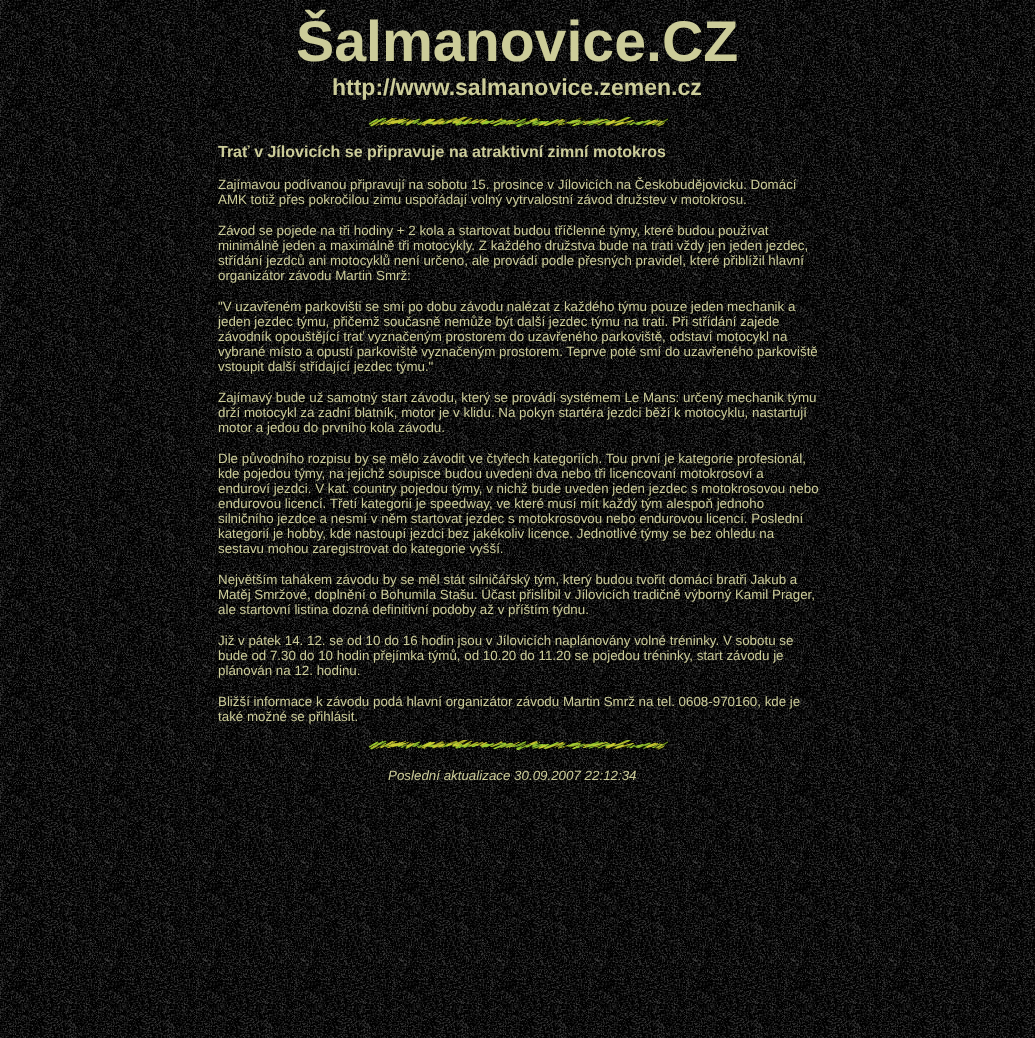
<!DOCTYPE html>
<meta charset="utf-8">
<style>body { margin: 0 } canvas { display: block }</style>
<canvas id="canvas" width="1035" height="1038"></canvas>
<img id="img1" src="img_01.png" hidden>
<img id="img2" src="img_02.png" hidden>
<img id="img3" src="img_03.png" hidden>
<script>
window.onload = function () {
	const canvas = document.getElementById("canvas");
	const ctx = canvas.getContext("2d");
	ctx.miterLimit = 4;
	ctx.fontKerning = "normal";
	function txt(s, x, y) {
		ctx.fillText(s, x, y);
	}
	function fill(x, y, w, h) {
		ctx.fillRect(x, y, w, h);
	}
	function img(id, x, y, w, h) {
		ctx.drawImage(document.getElementById(id), x, y, w, h);
	}

	ctx.fillStyle = "#FFFFFF";
	fill(0, 0, 1035, 1038);
	img("img1", 0, 0, 1035, 1038);
	img("img2", 369, 117, 299, 10);
	img("img3", 369, 740, 299, 10);
	ctx.font = "bold 57.25px Liberation Sans";
	ctx.fillStyle = "#CCCC99";
	txt("Šalmanovice.CZ", 296, 61);
	ctx.font = "bold 23px Liberation Sans";
	txt("http://www.salmanovice.zemen.cz", 332, 95);
	ctx.font = "bold 16px Liberation Sans";
	txt("Trať v Jílovicích se připravuje na atraktivní zimní motokros", 218, 157);
	ctx.font = "13.35px Liberation Sans";
	txt("Zajímavou podívanou připravují na sobotu 15. prosince v Jílovicích na Českobudějovicku. Domácí", 218, 189);
	txt("AMK totiž přes pokročilou zimu uspořádají volný vytrvalostní závod družstev v motokrosu.", 218, 204);
	txt("Závod se pojede na tři hodiny + 2 kola a startovat budou tříčlenné týmy, které budou používat", 218, 235);
	txt("minimálně jeden a maximálně tři motocykly. Z každého družstva bude na trati vždy jen jeden jezdec,", 218, 250);
	txt("střídání jezdců ani motocyklů není určeno, ale provádí podle přesných pravidel, které přiblížil hlavní", 218, 265);
	txt("organizátor závodu Martin Smrž:", 218, 280);
	txt("\"V uzavřeném parkovišti se smí po dobu závodu nalézat z každého týmu pouze jeden mechanik a", 218, 311);
	txt("jeden jezdec týmu, přičemž současně nemůže být další jezdec týmu na trati. Při střídání zajede", 218, 326);
	txt("závodník opouštějící trať vyznačeným prostorem do uzavřeného parkoviště, odstaví motocykl na", 218, 341);
	txt("vybrané místo a opustí parkoviště vyznačeným prostorem. Teprve poté smí do uzavřeného parkoviště", 218, 356);
	txt("vstoupit další střídající jezdec týmu.\"", 218, 371);
	txt("Zajímavý bude už samotný start závodu, který se provádí systémem Le Mans: určený mechanik týmu", 218, 402);
	txt("drží motocykl za zadní blatník, motor je v klidu. Na pokyn startéra jezdci běží k motocyklu, nastartují", 218, 417);
	txt("motor a jedou do prvního kola závodu.", 218, 432);
	txt("Dle původního rozpisu by se mělo závodit ve čtyřech kategoriích. Tou první je kategorie profesionál,", 218, 463);
	txt("kde pojedou týmy, na jejichž soupisce budou uvedeni dva nebo tři licencovaní motokrosoví a", 218, 478);
	txt("enduroví jezdci. V kat. country pojedou týmy, v nichž bude uveden jeden jezdec s motokrosovou nebo", 218, 493);
	txt("endurovou licencí. Třetí kategorií je speedway, ve které musí mít každý tým alespoň jednoho", 218, 508);
	txt("silničního jezdce a nesmí v něm startovat jezdec s motokrosovou nebo endurovou licencí. Poslední", 218, 523);
	txt("kategorií je hobby, kde nastoupí jezdci bez jakékoliv licence. Jednotlivé týmy se bez ohledu na", 218, 538);
	txt("sestavu mohou zaregistrovat do kategorie vyšší.", 218, 553);
	txt("Největším tahákem závodu by se měl stát silničářský tým, který budou tvořit domácí bratři Jakub a", 218, 584);
	txt("Matěj Smržové, doplnění o Bohumila Stašu. Účast přislíbil v Jílovicích tradičně výborný Kamil Prager,", 218, 599);
	txt("ale startovní listina dozná definitivní podoby až v příštím týdnu.", 218, 614);
	txt("Již v pátek 14. 12. se od 10 do 16 hodin jsou v Jílovicích naplánovány volné tréninky. V sobotu se", 218, 645);
	txt("bude od 7.30 do 10 hodin přejímka týmů, od 10.20 do 11.20 se pojedou tréninky, start závodu je", 218, 660);
	txt("plánován na 12. hodinu.", 218, 675);
	txt("Bližší informace k závodu podá hlavní organizátor závodu Martin Smrž na tel. 0608-970160, kde je", 218, 706);
	txt("také možné se přihlásit.", 218, 721);
	ctx.font = "italic 13.35px Liberation Sans";
	txt("Poslední aktualizace 30.09.2007 22:12:34", 388, 780);
};
</script>
